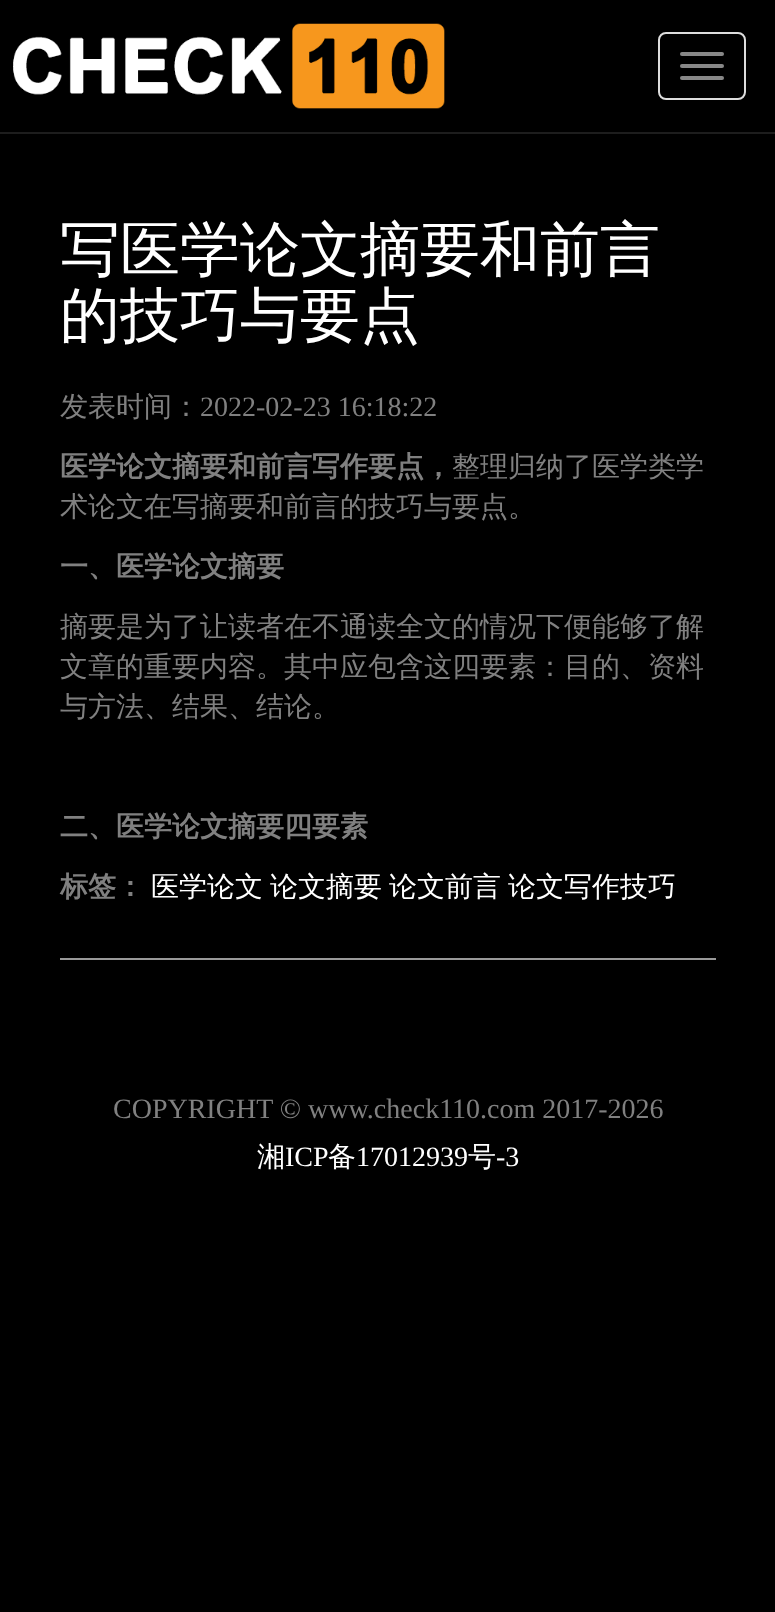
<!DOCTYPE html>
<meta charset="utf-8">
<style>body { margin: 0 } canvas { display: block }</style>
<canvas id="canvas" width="775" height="1612"></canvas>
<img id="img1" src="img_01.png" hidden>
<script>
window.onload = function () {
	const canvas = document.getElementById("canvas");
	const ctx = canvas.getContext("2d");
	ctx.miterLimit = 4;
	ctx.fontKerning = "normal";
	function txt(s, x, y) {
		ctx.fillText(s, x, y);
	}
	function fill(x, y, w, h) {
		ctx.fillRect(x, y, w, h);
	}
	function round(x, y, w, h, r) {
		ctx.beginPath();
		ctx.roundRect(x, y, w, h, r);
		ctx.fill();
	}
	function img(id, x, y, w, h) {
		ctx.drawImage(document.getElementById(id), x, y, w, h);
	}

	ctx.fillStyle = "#000000";
	fill(0, 0, 775, 1612);
	ctx.fillStyle = "#1D1D1D";
	fill(0, 132, 775, 2);
	img("img1", 13, 23, 432, 86);
	ctx.beginPath();
	ctx.roundRect(659, 33, 86, 66, 7);
	ctx.strokeStyle = "#DDDDDD";
	ctx.lineWidth = 2;
	ctx.stroke();
	ctx.fillStyle = "#888888";
	round(680, 52, 44, 4, 2);
	round(680, 64, 44, 4, 2);
	round(680, 76, 44, 4, 2);
	ctx.fillStyle = "#999999";
	fill(60, 958, 656, 2);
	ctx.font = "500 60px WenQuanYi Zen Hei";
	ctx.fillStyle = "#FFFFFF";
	txt("写医学论文摘要和前言", 60, 270);
	txt("的技巧与要点", 60, 336);
	ctx.font = "500 28px WenQuanYi Zen Hei";
	ctx.fillStyle = "#808080";
	txt("发表时间：", 60, 416);
	ctx.font = "28px Liberation Serif";
	txt("2022-02-23 16:18:22", 200, 416);
	ctx.font = "bold 28px WenQuanYi Zen Hei";
	txt("医学论文摘要和前言写作要点，", 60, 476);
	ctx.font = "500 28px WenQuanYi Zen Hei";
	txt("整理归纳了医学类学", 452, 476);
	txt("术论文在写摘要和前言的技巧与要点。", 60, 516);
	ctx.font = "bold 28px WenQuanYi Zen Hei";
	txt("一、医学论文摘要", 60, 576);
	ctx.font = "500 28px WenQuanYi Zen Hei";
	txt("摘要是为了让读者在不通读全文的情况下便能够了解", 60, 636);
	txt("文章的重要内容。其中应包含这四要素：目的、资料", 60, 676);
	txt("与方法、结果、结论。", 60, 716);
	ctx.font = "bold 28px WenQuanYi Zen Hei";
	txt("二、医学论文摘要四要素", 60, 836);
	txt("标签：", 60, 896);
	ctx.font = "500 28px WenQuanYi Zen Hei";
	ctx.fillStyle = "#FFFFFF";
	txt("医学论文", 151, 896);
	txt("论文摘要", 270, 896);
	txt("论文前言", 389, 896);
	txt("论文写作技巧", 508, 896);
	ctx.font = "28px Liberation Serif";
	ctx.fillStyle = "#808080";
	txt("COPYRIGHT © www.check110.com 2017-2026", 113, 1118);
	ctx.font = "500 28px WenQuanYi Zen Hei";
	ctx.fillStyle = "#FFFFFF";
	txt("湘", 257, 1166);
	ctx.font = "28px Liberation Serif";
	txt("ICP", 285, 1166);
	ctx.font = "500 28px WenQuanYi Zen Hei";
	txt("备", 328, 1166);
	ctx.font = "28px Liberation Serif";
	txt("17012939", 356, 1166);
	ctx.font = "500 28px WenQuanYi Zen Hei";
	txt("号", 468, 1166);
	ctx.font = "28px Liberation Serif";
	txt("-3", 496, 1166);
};
</script>
